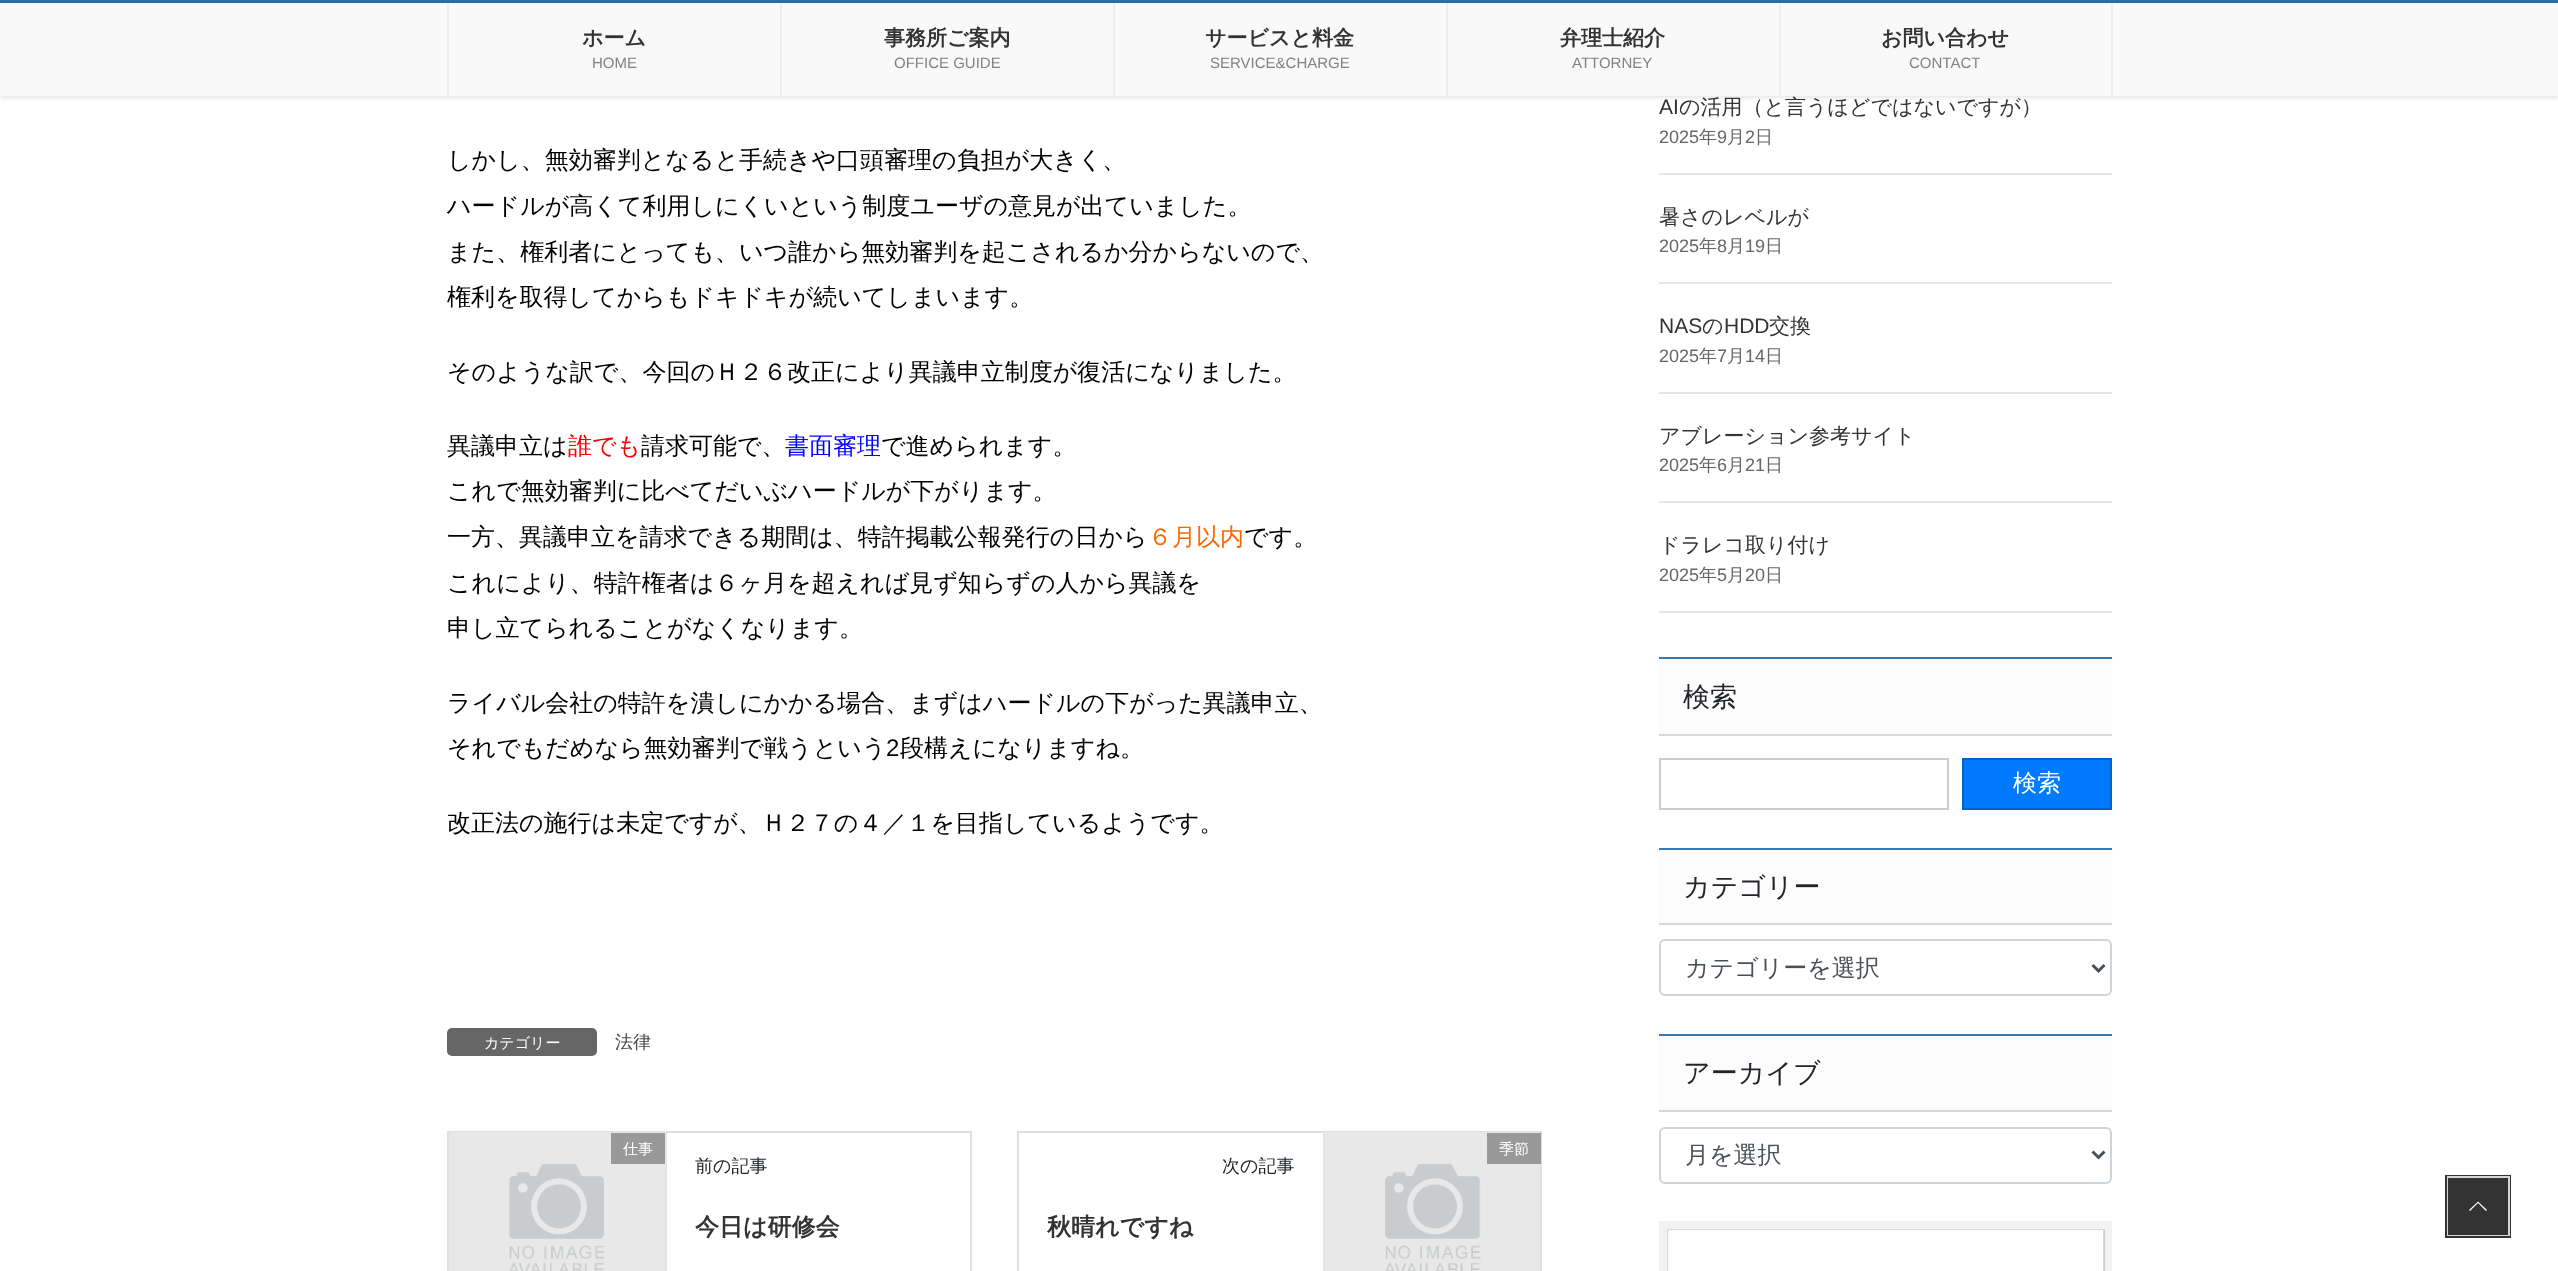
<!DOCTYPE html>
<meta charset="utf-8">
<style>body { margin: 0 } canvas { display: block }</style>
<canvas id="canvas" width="2558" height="1271"></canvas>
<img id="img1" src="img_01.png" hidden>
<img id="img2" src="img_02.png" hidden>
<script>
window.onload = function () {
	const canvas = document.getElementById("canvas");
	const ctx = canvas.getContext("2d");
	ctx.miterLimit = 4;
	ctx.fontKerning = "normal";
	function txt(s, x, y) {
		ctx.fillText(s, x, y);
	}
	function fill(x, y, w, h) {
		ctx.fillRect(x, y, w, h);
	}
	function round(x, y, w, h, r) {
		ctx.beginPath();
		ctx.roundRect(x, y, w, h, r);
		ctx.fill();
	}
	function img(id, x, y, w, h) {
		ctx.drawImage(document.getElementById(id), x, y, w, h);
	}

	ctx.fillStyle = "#FFFFFF";
	fill(0, 0, 2558, 1271);
	ctx.fillStyle = "#D9D9D9";
	fill(1659, 924, 453, 1);
	fill(1659, 735, 453, 1);
	ctx.fillStyle = "rgba(0, 0, 0, 0.1)";
	ctx.filter = "blur(2px)";
	ctx.beginPath();
	ctx.rect(0, 2, 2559, 96);
	ctx.fill();
	ctx.filter = "none";
	ctx.fillStyle = "#F9F9F9";
	fill(0, 3, 2558, 93);
	ctx.fillStyle = "#2E6DA4";
	fill(0, 0, 2558, 3);
	ctx.fillStyle = "#EDEDED";
	fill(447, 3, 2, 93);
	fill(780, 3, 2, 93);
	fill(1113, 3, 2, 93);
	fill(1446, 3, 2, 93);
	fill(2111, 3, 2, 93);
	fill(1779, 3, 2, 93);
	ctx.fillStyle = "#666666";
	round(447, 1028, 150, 28, 5);
	ctx.strokeStyle = "#DFDFDF";
	ctx.lineWidth = 2;
	ctx.strokeRect(448, 1132, 523, 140);
	img("img1", 449, 1132, 217, 139);
	ctx.fillStyle = "#E5E5E5";
	fill(665, 1133, 2, 138);
	ctx.fillStyle = "#999999";
	fill(611, 1133, 54, 31);
	ctx.strokeRect(1018, 1132, 523, 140);
	img("img2", 1323, 1132, 217, 139);
	ctx.fillStyle = "#E5E5E5";
	fill(1323, 1133, 2, 138);
	ctx.fillStyle = "#999999";
	fill(1487, 1133, 54, 31);
	ctx.fillStyle = "#E5E5E5";
	fill(1659, 173, 453, 2);
	fill(1659, 282, 453, 2);
	fill(1659, 392, 453, 2);
	fill(1659, 501, 453, 2);
	fill(1659, 611, 453, 2);
	ctx.fillStyle = "#FCFCFC";
	fill(1659, 659, 453, 75);
	ctx.fillStyle = "#D6D6D6";
	fill(1659, 734, 453, 1);
	ctx.fillStyle = "#337AB7";
	fill(1659, 657, 453, 2);
	ctx.strokeStyle = "#CCCCCC";
	ctx.strokeRect(1660, 759, 288, 50);
	ctx.fillStyle = "#007BFF";
	ctx.beginPath();
	ctx.rect(1963, 759, 148, 50);
	ctx.fill();
	ctx.strokeStyle = "#0062CC";
	ctx.stroke();
	ctx.fillStyle = "#FCFCFC";
	fill(1659, 850, 453, 73);
	ctx.fillStyle = "#D6D6D6";
	fill(1659, 923, 453, 1);
	ctx.fillStyle = "#337AB7";
	fill(1659, 848, 453, 2);
	ctx.beginPath();
	ctx.roundRect(1660, 940, 451, 55, 5);
	ctx.strokeStyle = "#CED4DA";
	ctx.stroke();
	ctx.beginPath();
	ctx.moveTo(2092.5, 965);
	ctx.lineTo(2098.5, 971);
	ctx.lineTo(2104.5, 965);
	ctx.strokeStyle = "#495057";
	ctx.lineWidth = 3;
	ctx.stroke();
	ctx.fillStyle = "#FCFCFC";
	fill(1659, 1036, 453, 74);
	ctx.fillStyle = "#337AB7";
	fill(1659, 1034, 453, 2);
	ctx.fillStyle = "#D6D6D6";
	fill(1659, 1110, 453, 2);
	ctx.beginPath();
	ctx.roundRect(1660, 1128, 451, 55, 5);
	ctx.strokeStyle = "#CED4DA";
	ctx.lineWidth = 2;
	ctx.stroke();
	ctx.beginPath();
	ctx.moveTo(2092.5, 1151.5);
	ctx.lineTo(2098.5, 1157.5);
	ctx.lineTo(2104.5, 1151.5);
	ctx.strokeStyle = "#495057";
	ctx.lineWidth = 3;
	ctx.stroke();
	ctx.strokeStyle = "#D9D9D9";
	ctx.lineWidth = 2;
	ctx.strokeRect(1668, 1230, 436, 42);
	ctx.strokeStyle = "rgba(0, 0, 0, 0.05)";
	ctx.lineWidth = 8;
	ctx.strokeRect(1663, 1225, 445, 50);
	ctx.strokeStyle = "rgba(255, 255, 255, 0.8)";
	ctx.lineWidth = 2;
	ctx.strokeRect(1669, 1231, 433, 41);
	ctx.strokeStyle = "#333333";
	ctx.lineWidth = 3;
	ctx.strokeRect(2446.5, 1176.5, 63, 60);
	ctx.strokeStyle = "rgba(255, 255, 255, 0.8)";
	ctx.lineWidth = 2;
	ctx.strokeRect(2448, 1177, 61, 58);
	ctx.fillStyle = "#333333";
	fill(2448, 1178, 60, 57);
	ctx.fillStyle = "#FFFFFF";
	ctx.beginPath();
	ctx.moveTo(2487, 1210);
	ctx.lineTo(2486, 1211);
	ctx.lineTo(2478, 1203);
	ctx.lineTo(2470, 1211);
	ctx.lineTo(2469, 1210);
	ctx.lineTo(2478, 1201.5);
	ctx.closePath();
	ctx.fill();
	ctx.font = "bold 21px WenQuanYi Zen Hei";
	ctx.fillStyle = "#333333";
	txt("ホーム", 582, 45);
	ctx.font = "15px Liberation Sans";
	ctx.fillStyle = "#828282";
	txt("HOME", 592, 68);
	ctx.font = "bold 21px WenQuanYi Zen Hei";
	ctx.fillStyle = "#333333";
	txt("事務所ご案内", 884, 45);
	ctx.font = "15px Liberation Sans";
	ctx.fillStyle = "#828282";
	txt("OFFICE GUIDE", 894, 68);
	ctx.font = "bold 21px WenQuanYi Zen Hei";
	ctx.fillStyle = "#333333";
	txt("サービスと料金", 1205, 45);
	ctx.font = "15px Liberation Sans";
	ctx.fillStyle = "#828282";
	txt("SERVICE&CHARGE", 1210, 68);
	ctx.font = "bold 21px WenQuanYi Zen Hei";
	ctx.fillStyle = "#333333";
	txt("弁理士紹介", 1560, 45);
	ctx.font = "15px Liberation Sans";
	ctx.fillStyle = "#828282";
	txt("ATTORNEY", 1572, 68);
	ctx.font = "bold 21px WenQuanYi Zen Hei";
	ctx.fillStyle = "#333333";
	txt("お問い合わせ", 1881, 45);
	ctx.font = "15px Liberation Sans";
	ctx.fillStyle = "#828282";
	txt("CONTACT", 1909, 68);
	ctx.font = "500 24px WenQuanYi Zen Hei";
	ctx.fillStyle = "#000000";
	txt("しかし、無効審判となると手続きや口頭審理の負担が大きく、", 447, 168);
	txt("ハードルが高くて利用しにくいという制度ユーザの意見が出ていました。", 447, 214);
	txt("また、権利者にとっても、いつ誰から無効審判を起こされるか分からないので、", 447, 260);
	txt("権利を取得してからもドキドキが続いてしまいます。", 447, 305);
	txt("そのような訳で、今回のＨ２６改正により異議申立制度が復活になりました。", 447, 380);
	txt("異議申立は", 447, 454);
	ctx.fillStyle = "#FF0000";
	txt("誰でも", 568, 454);
	ctx.fillStyle = "#000000";
	txt("請求可能で、", 641, 454);
	ctx.fillStyle = "#0000FF";
	txt("書面審理", 785, 454);
	ctx.fillStyle = "#000000";
	txt("で進められます。", 881, 454);
	txt("これで無効審判に比べてだいぶハードルが下がります。", 447, 499);
	txt("一方、異議申立を請求できる期間は、特許掲載公報発行の日から", 447, 545);
	ctx.fillStyle = "#FF6600";
	txt("６月以内", 1148, 545);
	ctx.fillStyle = "#000000";
	txt("です。", 1244, 545);
	txt("これにより、特許権者は６ヶ月を超えれば見ず知らずの人から異議を", 447, 591);
	txt("申し立てられることがなくなります。", 447, 636);
	txt("ライバル会社の特許を潰しにかかる場合、まずはハードルの下がった異議申立、", 447, 711);
	txt("それでもだめなら無効審判で戦うという", 447, 756);
	ctx.font = "24px Liberation Sans";
	txt("2", 886, 756);
	ctx.font = "500 24px WenQuanYi Zen Hei";
	txt("段構えになりますね。", 900, 756);
	txt("改正法の施行は未定ですが、Ｈ２７の４／１を目指しているようです。", 447, 831);
	ctx.font = "500 15px WenQuanYi Zen Hei";
	ctx.fillStyle = "#FFFFFF";
	txt("カテゴリー", 484, 1048);
	ctx.font = "500 18px WenQuanYi Zen Hei";
	ctx.fillStyle = "#464646";
	txt("法律", 615, 1048);
	ctx.font = "500 15px WenQuanYi Zen Hei";
	ctx.fillStyle = "#FFFFFF";
	txt("仕事", 623, 1154);
	ctx.font = "500 18px WenQuanYi Zen Hei";
	ctx.fillStyle = "#212529";
	txt("前の記事", 695, 1172);
	ctx.font = "bold 24px WenQuanYi Zen Hei";
	ctx.fillStyle = "#333333";
	txt("今日は研修会", 695, 1235);
	ctx.font = "500 15px WenQuanYi Zen Hei";
	ctx.fillStyle = "#FFFFFF";
	txt("季節", 1499, 1154);
	ctx.font = "500 18px WenQuanYi Zen Hei";
	ctx.fillStyle = "#212529";
	txt("次の記事", 1222, 1172);
	ctx.font = "bold 24px WenQuanYi Zen Hei";
	ctx.fillStyle = "#333333";
	txt("秋晴れですね", 1047, 1235);
	ctx.font = "21px Liberation Sans";
	txt("AI", 1659, 114);
	ctx.font = "500 21px WenQuanYi Zen Hei";
	txt("の活用（と言うほどではないですが）", 1679, 114);
	ctx.font = "18px Liberation Sans";
	ctx.fillStyle = "#666666";
	txt("2025", 1659, 143);
	ctx.font = "500 18px WenQuanYi Zen Hei";
	txt("年", 1699, 143);
	ctx.font = "18px Liberation Sans";
	txt("9", 1717, 143);
	ctx.font = "500 18px WenQuanYi Zen Hei";
	txt("月", 1727, 143);
	ctx.font = "18px Liberation Sans";
	txt("2", 1745, 143);
	ctx.font = "500 18px WenQuanYi Zen Hei";
	txt("日", 1755, 143);
	ctx.font = "500 21px WenQuanYi Zen Hei";
	ctx.fillStyle = "#333333";
	txt("暑さのレベルが", 1659, 224);
	ctx.font = "18px Liberation Sans";
	ctx.fillStyle = "#666666";
	txt("2025", 1659, 252);
	ctx.font = "500 18px WenQuanYi Zen Hei";
	txt("年", 1699, 252);
	ctx.font = "18px Liberation Sans";
	txt("8", 1717, 252);
	ctx.font = "500 18px WenQuanYi Zen Hei";
	txt("月", 1727, 252);
	ctx.font = "18px Liberation Sans";
	txt("19", 1745, 252);
	ctx.font = "500 18px WenQuanYi Zen Hei";
	txt("日", 1765, 252);
	ctx.font = "21px Liberation Sans";
	ctx.fillStyle = "#333333";
	txt("NAS", 1659, 333);
	ctx.font = "500 21px WenQuanYi Zen Hei";
	txt("の", 1702, 333);
	ctx.font = "21px Liberation Sans";
	txt("HDD", 1724, 333);
	ctx.font = "500 21px WenQuanYi Zen Hei";
	txt("交換", 1769, 333);
	ctx.font = "18px Liberation Sans";
	ctx.fillStyle = "#666666";
	txt("2025", 1659, 362);
	ctx.font = "500 18px WenQuanYi Zen Hei";
	txt("年", 1699, 362);
	ctx.font = "18px Liberation Sans";
	txt("7", 1717, 362);
	ctx.font = "500 18px WenQuanYi Zen Hei";
	txt("月", 1727, 362);
	ctx.font = "18px Liberation Sans";
	txt("14", 1745, 362);
	ctx.font = "500 18px WenQuanYi Zen Hei";
	txt("日", 1765, 362);
	ctx.font = "500 21px WenQuanYi Zen Hei";
	ctx.fillStyle = "#333333";
	txt("アブレーション参考サイト", 1659, 443);
	ctx.font = "18px Liberation Sans";
	ctx.fillStyle = "#666666";
	txt("2025", 1659, 471);
	ctx.font = "500 18px WenQuanYi Zen Hei";
	txt("年", 1699, 471);
	ctx.font = "18px Liberation Sans";
	txt("6", 1717, 471);
	ctx.font = "500 18px WenQuanYi Zen Hei";
	txt("月", 1727, 471);
	ctx.font = "18px Liberation Sans";
	txt("21", 1745, 471);
	ctx.font = "500 18px WenQuanYi Zen Hei";
	txt("日", 1765, 471);
	ctx.font = "500 21px WenQuanYi Zen Hei";
	ctx.fillStyle = "#333333";
	txt("ドラレコ取り付け", 1659, 552);
	ctx.font = "18px Liberation Sans";
	ctx.fillStyle = "#666666";
	txt("2025", 1659, 581);
	ctx.font = "500 18px WenQuanYi Zen Hei";
	txt("年", 1699, 581);
	ctx.font = "18px Liberation Sans";
	txt("5", 1717, 581);
	ctx.font = "500 18px WenQuanYi Zen Hei";
	txt("月", 1727, 581);
	ctx.font = "18px Liberation Sans";
	txt("20", 1745, 581);
	ctx.font = "500 18px WenQuanYi Zen Hei";
	txt("日", 1765, 581);
	ctx.font = "500 27px WenQuanYi Zen Hei";
	ctx.fillStyle = "#212529";
	txt("検索", 1683, 706);
	ctx.font = "500 24px WenQuanYi Zen Hei";
	ctx.fillStyle = "#FFFFFF";
	txt("検索", 2013, 791);
	ctx.font = "500 27px WenQuanYi Zen Hei";
	ctx.fillStyle = "#212529";
	txt("カテゴリー", 1683, 896);
	ctx.font = "500 24px WenQuanYi Zen Hei";
	ctx.fillStyle = "#495057";
	txt("カテゴリーを選択", 1685, 976);
	ctx.font = "500 27px WenQuanYi Zen Hei";
	ctx.fillStyle = "#212529";
	txt("アーカイブ", 1683, 1082);
	ctx.font = "500 24px WenQuanYi Zen Hei";
	ctx.fillStyle = "#495057";
	txt("月を選択", 1685, 1163);
};
</script>
